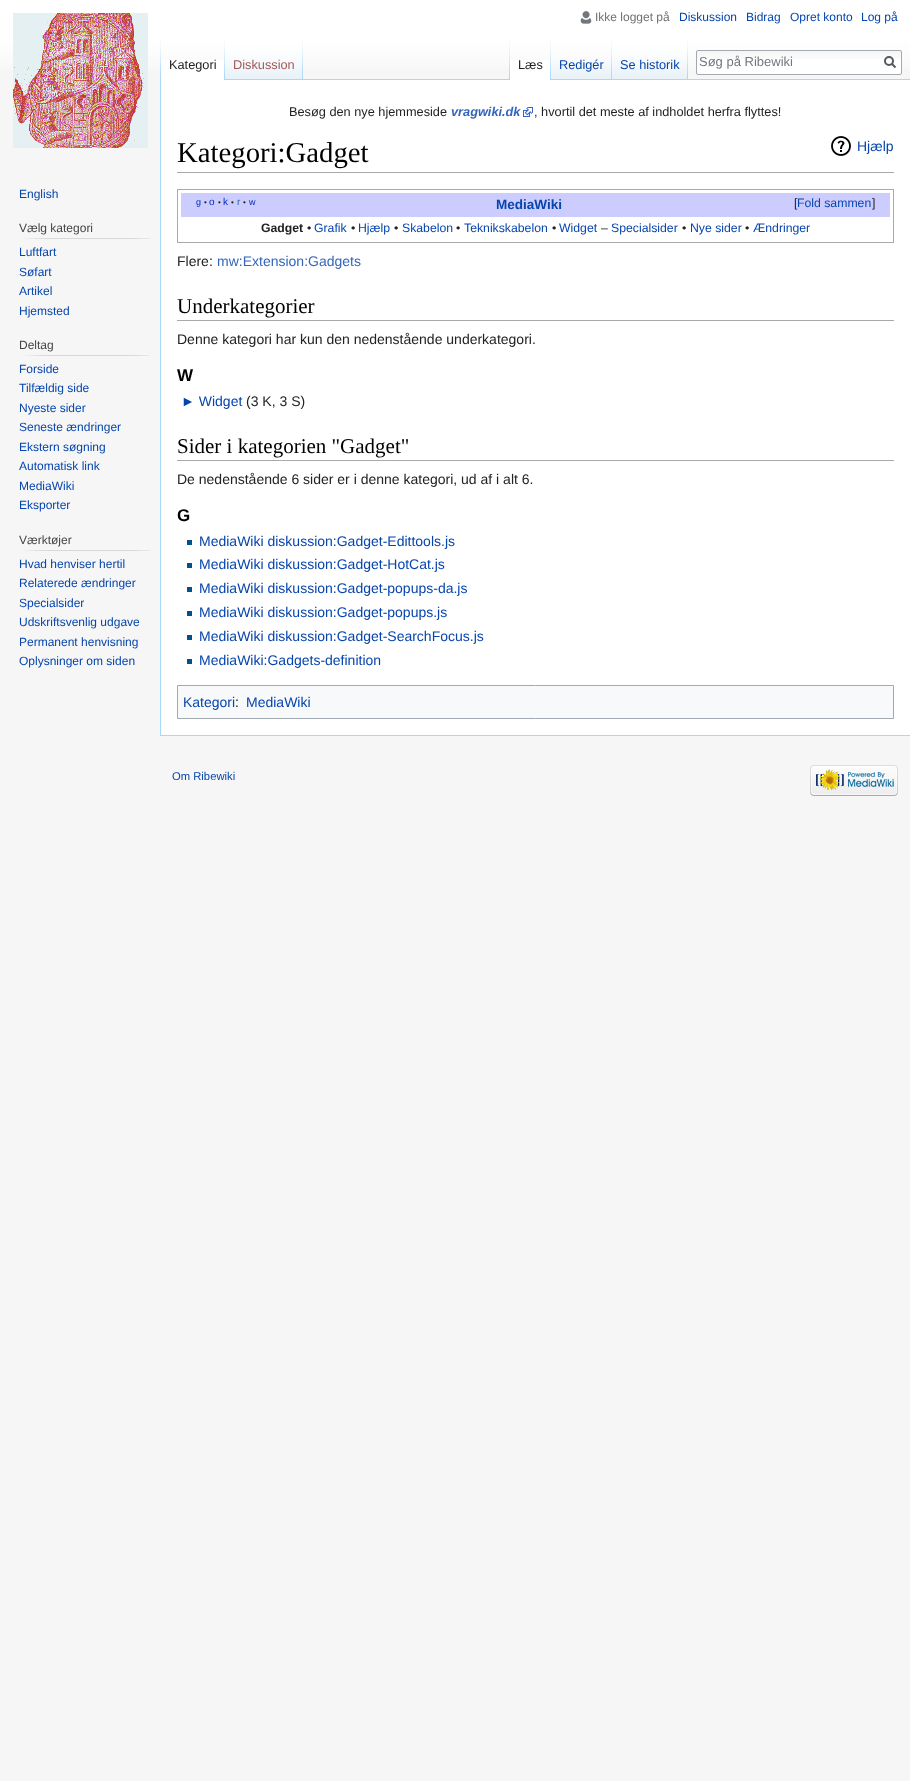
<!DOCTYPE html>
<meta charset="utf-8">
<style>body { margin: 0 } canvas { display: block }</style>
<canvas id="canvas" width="910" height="1781"></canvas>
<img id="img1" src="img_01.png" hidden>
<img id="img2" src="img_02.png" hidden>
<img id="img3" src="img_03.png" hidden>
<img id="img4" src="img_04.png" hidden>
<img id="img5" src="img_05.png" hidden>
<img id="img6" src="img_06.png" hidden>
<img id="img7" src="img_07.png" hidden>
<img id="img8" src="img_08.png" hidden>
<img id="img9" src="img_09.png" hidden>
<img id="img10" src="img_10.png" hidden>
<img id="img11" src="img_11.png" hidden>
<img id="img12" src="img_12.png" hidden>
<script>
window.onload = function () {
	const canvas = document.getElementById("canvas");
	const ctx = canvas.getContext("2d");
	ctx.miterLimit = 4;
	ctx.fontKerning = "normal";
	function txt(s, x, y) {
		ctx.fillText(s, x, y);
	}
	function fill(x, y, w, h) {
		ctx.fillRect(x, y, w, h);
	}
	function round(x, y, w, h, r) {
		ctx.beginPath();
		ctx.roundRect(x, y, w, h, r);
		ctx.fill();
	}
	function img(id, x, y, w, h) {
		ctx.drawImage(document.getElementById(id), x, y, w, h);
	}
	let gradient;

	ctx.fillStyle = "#F6F6F6";
	fill(0, 0, 910, 1781);
	gradient = ctx.createLinearGradient(455, 0, 455, 80);
	gradient.addColorStop(0.5, "#FFFFFF");
	gradient.addColorStop(1, "#F6F6F6");
	ctx.fillStyle = gradient;
	fill(0, 0, 910, 69);
	img("img1", 580, 11, 12, 13);
	img("img2", 160, 40, 1, 39);
	ctx.fillStyle = "#FFFFFF";
	fill(161, 60, 63, 20);
	img("img3", 224, 40, 1, 40);
	img("img4", 225, 40, 77, 39);
	img("img2", 302, 40, 1, 39);
	img("img2", 509, 40, 1, 39);
	ctx.fillStyle = "#A7D7F9";
	fill(225, 79, 685, 1);
	ctx.fillStyle = "#FFFFFF";
	fill(510, 60, 40, 20);
	img("img3", 550, 40, 1, 40);
	img("img5", 551, 62, 60, 17);
	img("img2", 611, 40, 1, 39);
	img("img6", 612, 40, 75, 39);
	img("img2", 687, 40, 1, 39);
	round(696, 50, 206, 25, 2);
	img("img7", 696, 51, 206, 8);
	ctx.beginPath();
	ctx.roundRect(696.5, 50.5, 205, 24, 1.5);
	ctx.strokeStyle = "#A2A9B1";
	ctx.stroke();
	ctx.beginPath();
	ctx.moveTo(895.5, 67.5);
	ctx.lineTo(891.5, 63.5);
	ctx.strokeStyle = "#54595D";
	ctx.lineWidth = 2;
	ctx.stroke();
	ctx.beginPath();
	ctx.arc(889, 61, 4, 0, Math.PI * 2);
	ctx.stroke();
	img("img8", 13, 13, 135, 135);
	img("img9", 22, 238, 128, 1);
	img("img9", 22, 355, 128, 1);
	img("img9", 22, 550, 128, 1);
	fill(161, 80, 749, 655);
	ctx.fillStyle = "#A7D7F9";
	fill(160, 735, 750, 1);
	fill(160, 79, 1, 657);
	img("img10", 523, 107, 10, 10);
	ctx.fillStyle = "#AAAAAA";
	fill(177, 172, 717, 1);
	img("img11", 831, 136, 20, 20);
	ctx.strokeStyle = "#AAAAAA";
	ctx.lineWidth = 1;
	ctx.strokeRect(177.5, 189.5, 716, 53);
	ctx.fillStyle = "#CCCCFF";
	fill(181, 193, 709, 24);
	ctx.fillStyle = "#AAAAAA";
	fill(177, 320, 717, 1);
	fill(177, 460, 717, 1);
	ctx.fillStyle = "#00528C";
	fill(187, 540, 5, 5);
	fill(187, 563, 5, 5);
	fill(187, 587, 5, 5);
	fill(187, 611, 5, 5);
	fill(187, 635, 5, 5);
	fill(187, 659, 5, 5);
	ctx.fillStyle = "#F8F9FA";
	ctx.beginPath();
	ctx.rect(177.5, 685.5, 716, 33);
	ctx.fill();
	ctx.strokeStyle = "#A2A9B1";
	ctx.stroke();
	img("img12", 810, 765, 88, 31);
	ctx.font = "12px Liberation Sans";
	ctx.fillStyle = "#707070";
	txt("Ikke logget på", 595, 21);
	ctx.fillStyle = "#0645AD";
	txt("Diskussion", 679, 21);
	txt("Bidrag", 746, 21);
	txt("Opret konto", 790, 21);
	txt("Log på", 861, 21);
	ctx.font = "12.75px Liberation Sans";
	ctx.fillStyle = "#222222";
	txt("Kategori", 169, 69);
	ctx.fillStyle = "#A55858";
	txt("Diskussion", 233, 69);
	ctx.fillStyle = "#222222";
	txt("Læs", 518, 69);
	ctx.fillStyle = "#0645AD";
	txt("Redigér", 559, 69);
	txt("Se historik", 620, 69);
	ctx.font = "13px Liberation Sans";
	ctx.fillStyle = "#72777D";
	txt("Søg på Ribewiki", 699, 66);
	ctx.font = "12px Liberation Sans";
	ctx.fillStyle = "#0645AD";
	txt("English", 19, 198);
	ctx.fillStyle = "#444444";
	txt("Vælg kategori", 19, 232);
	ctx.fillStyle = "#0645AD";
	txt("Luftfart", 19, 256);
	txt("Søfart", 19, 276);
	txt("Artikel", 19, 295);
	txt("Hjemsted", 19, 315);
	ctx.fillStyle = "#444444";
	txt("Deltag", 19, 349);
	ctx.fillStyle = "#0645AD";
	txt("Forside", 19, 373);
	txt("Tilfældig side", 19, 392);
	txt("Nyeste sider", 19, 412);
	txt("Seneste ændringer", 19, 431);
	txt("Ekstern søgning", 19, 451);
	txt("Automatisk link", 19, 470);
	txt("MediaWiki", 19, 490);
	txt("Eksporter", 19, 509);
	ctx.fillStyle = "#444444";
	txt("Værktøjer", 19, 544);
	ctx.fillStyle = "#0645AD";
	txt("Hvad henviser hertil", 19, 568);
	txt("Relaterede ændringer", 19, 587);
	txt("Specialsider", 19, 607);
	txt("Udskriftsvenlig udgave", 19, 626);
	txt("Permanent henvisning", 19, 646);
	txt("Oplysninger om siden", 19, 665);
	ctx.font = "12.75px Liberation Sans";
	ctx.fillStyle = "#222222";
	txt("Besøg den nye hjemmeside", 289, 116);
	ctx.font = "italic bold 12.75px Liberation Sans";
	ctx.fillStyle = "#3366BB";
	txt("vragwiki.dk", 451, 116);
	ctx.font = "12.75px Liberation Sans";
	ctx.fillStyle = "#222222";
	txt(", hvortil det meste af indholdet herfra flyttes!", 534, 116);
	ctx.font = "28.75px Liberation Serif";
	ctx.fillStyle = "#000000";
	txt("Kategori:Gadget", 177, 162);
	ctx.font = "14px Liberation Sans";
	ctx.fillStyle = "#0645AD";
	txt("Hjælp", 857, 151);
	ctx.font = "9px Liberation Sans";
	ctx.fillStyle = "#002BB8";
	txt("g", 196, 205);
	ctx.font = "8px Liberation Sans";
	ctx.fillStyle = "#222222";
	txt("•", 204, 205);
	ctx.font = "10px Liberation Sans";
	ctx.fillStyle = "#002BB8";
	txt("o", 209, 205);
	ctx.font = "8px Liberation Sans";
	ctx.fillStyle = "#222222";
	txt("•", 218, 205);
	ctx.font = "10px Liberation Sans";
	ctx.fillStyle = "#002BB8";
	txt("k", 223, 205);
	ctx.font = "8px Liberation Sans";
	ctx.fillStyle = "#222222";
	txt("•", 231, 205);
	ctx.font = "10px Liberation Sans";
	ctx.fillStyle = "#3366BB";
	txt("r", 237, 205);
	ctx.font = "8px Liberation Sans";
	ctx.fillStyle = "#222222";
	txt("•", 243, 205);
	ctx.font = "9px Liberation Sans";
	ctx.fillStyle = "#002BB8";
	txt("w", 249, 205);
	ctx.font = "bold 13.5px Liberation Sans";
	ctx.fillStyle = "#0645AD";
	txt("MediaWiki", 496, 209);
	ctx.font = "12.25px Liberation Sans";
	ctx.fillStyle = "#222222";
	txt("[", 794, 207);
	ctx.fillStyle = "#0645AD";
	txt("Fold sammen", 797, 207);
	ctx.fillStyle = "#222222";
	txt("]", 872, 207);
	ctx.font = "bold 12.25px Liberation Sans";
	txt("Gadget", 261, 232);
	ctx.font = "12.25px Liberation Sans";
	txt("•", 307, 232);
	ctx.fillStyle = "#0645AD";
	txt("Grafik", 314, 232);
	ctx.fillStyle = "#222222";
	txt("•", 351, 232);
	ctx.fillStyle = "#0645AD";
	txt("Hjælp", 358, 232);
	ctx.fillStyle = "#222222";
	txt("•", 394, 232);
	ctx.fillStyle = "#0645AD";
	txt("Skabelon", 402, 232);
	ctx.fillStyle = "#222222";
	txt("•", 456, 232);
	ctx.fillStyle = "#0645AD";
	txt("Teknikskabelon", 464, 232);
	ctx.fillStyle = "#222222";
	txt("•", 552, 232);
	ctx.fillStyle = "#0645AD";
	txt("Widget", 559, 232);
	ctx.fillStyle = "#222222";
	txt("–", 601, 232);
	ctx.fillStyle = "#0645AD";
	txt("Specialsider", 611, 232);
	ctx.fillStyle = "#222222";
	txt("•", 682, 232);
	ctx.fillStyle = "#0645AD";
	txt("Nye sider", 690, 232);
	ctx.fillStyle = "#222222";
	txt("•", 745, 232);
	ctx.fillStyle = "#0645AD";
	txt("Ændringer", 753, 232);
	ctx.font = "14px Liberation Sans";
	ctx.fillStyle = "#222222";
	txt("Flere:", 177, 266);
	ctx.fillStyle = "#3366BB";
	txt("mw:Extension:Gadgets", 217, 266);
	ctx.font = "21px Liberation Serif";
	ctx.fillStyle = "#000000";
	txt("Underkategorier", 177, 313);
	ctx.font = "14px Liberation Sans";
	ctx.fillStyle = "#222222";
	txt("Denne kategori har kun den nedenstående underkategori.", 177, 344);
	ctx.font = "bold 17px Liberation Sans";
	ctx.fillStyle = "#000000";
	txt("W", 177, 381);
	ctx.font = "14px Liberation Sans";
	ctx.fillStyle = "#0645AD";
	txt("► Widget", 181, 406);
	ctx.fillStyle = "#222222";
	txt("(3 K, 3 S)", 246, 406);
	ctx.font = "21px Liberation Serif";
	ctx.fillStyle = "#000000";
	txt("Sider i kategorien \"Gadget\"", 177, 453);
	ctx.font = "14px Liberation Sans";
	ctx.fillStyle = "#222222";
	txt("De nedenstående 6 sider er i denne kategori, ud af i alt 6.", 177, 484);
	ctx.font = "bold 17px Liberation Sans";
	ctx.fillStyle = "#000000";
	txt("G", 177, 521);
	ctx.font = "14px Liberation Sans";
	ctx.fillStyle = "#0645AD";
	txt("MediaWiki diskussion:Gadget-Edittools.js", 199, 546);
	txt("MediaWiki diskussion:Gadget-HotCat.js", 199, 569);
	txt("MediaWiki diskussion:Gadget-popups-da.js", 199, 593);
	txt("MediaWiki diskussion:Gadget-popups.js", 199, 617);
	txt("MediaWiki diskussion:Gadget-SearchFocus.js", 199, 641);
	txt("MediaWiki:Gadgets-definition", 199, 665);
	txt("Kategori", 183, 707);
	ctx.fillStyle = "#222222";
	txt(":", 235, 707);
	ctx.fillStyle = "#0645AD";
	txt("MediaWiki", 246, 707);
	ctx.font = "11.25px Liberation Sans";
	txt("Om Ribewiki", 172, 780);
};
</script>
